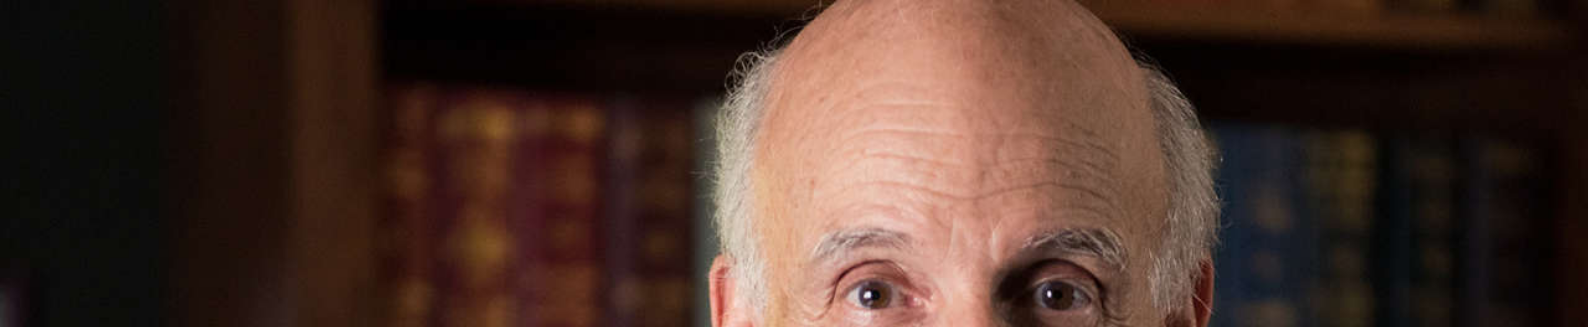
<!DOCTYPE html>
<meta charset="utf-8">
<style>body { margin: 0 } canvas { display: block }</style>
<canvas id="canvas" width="1588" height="327"></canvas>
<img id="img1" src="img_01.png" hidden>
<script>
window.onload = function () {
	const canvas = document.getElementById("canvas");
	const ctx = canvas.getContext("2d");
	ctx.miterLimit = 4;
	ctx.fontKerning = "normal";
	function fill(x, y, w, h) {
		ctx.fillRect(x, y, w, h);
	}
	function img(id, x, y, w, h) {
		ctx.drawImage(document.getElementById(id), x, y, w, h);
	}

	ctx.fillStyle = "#FFFFFF";
	fill(0, 0, 1588, 327);
	img("img1", 0, 0, 1588, 327);
};
</script>
